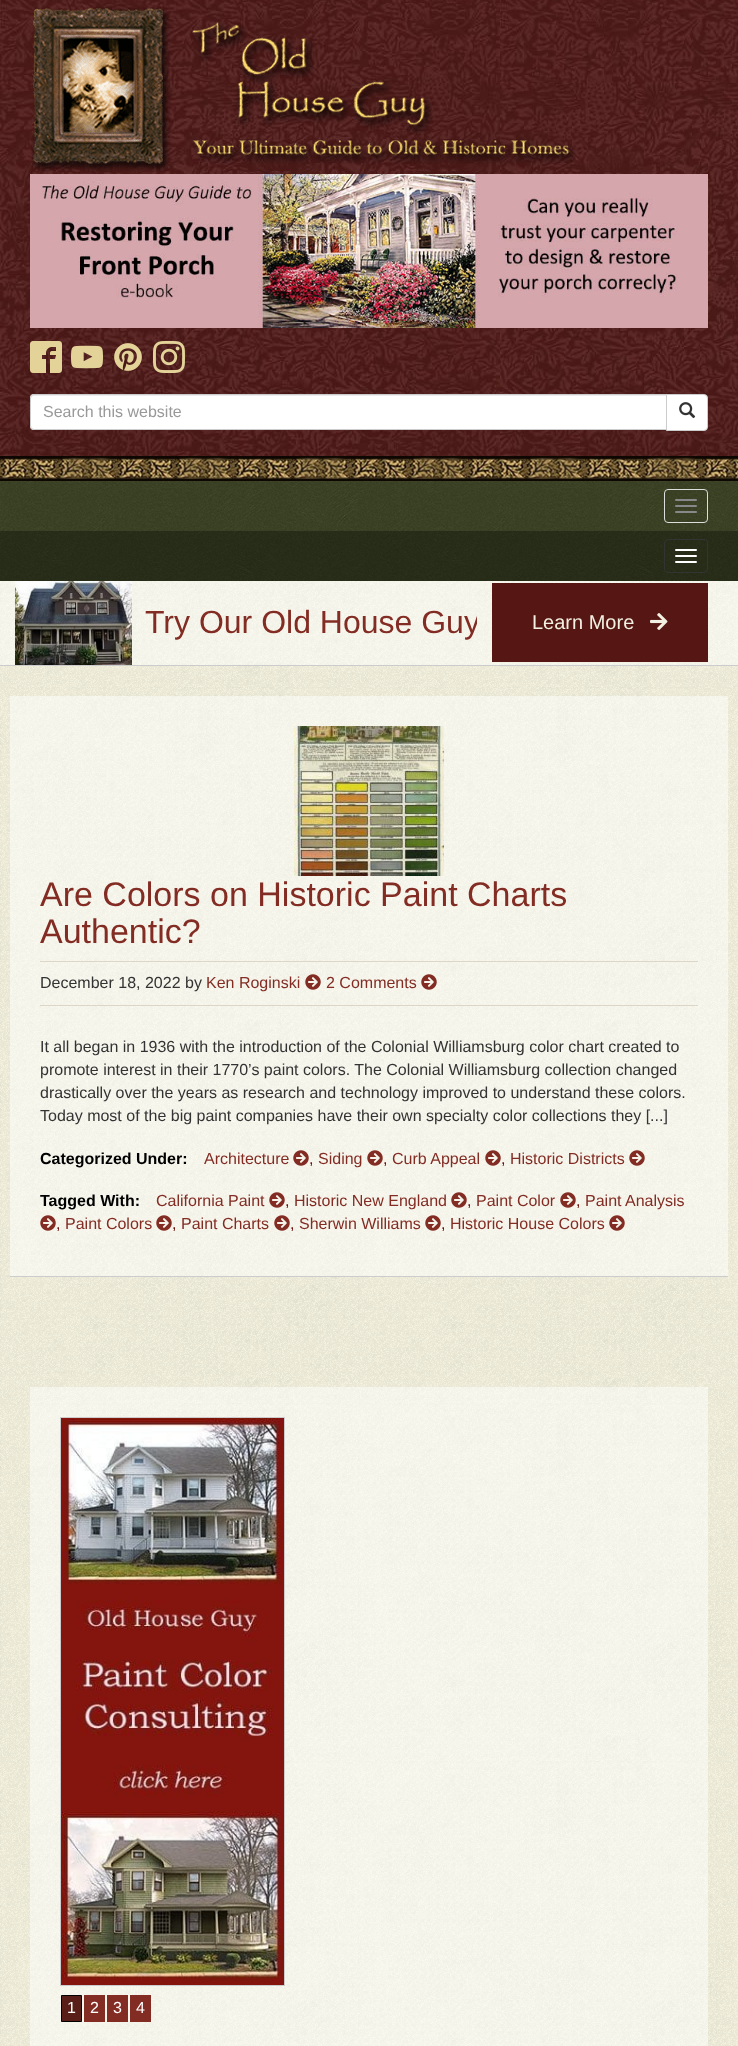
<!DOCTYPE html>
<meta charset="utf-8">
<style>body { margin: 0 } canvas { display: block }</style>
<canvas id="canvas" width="738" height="2046"></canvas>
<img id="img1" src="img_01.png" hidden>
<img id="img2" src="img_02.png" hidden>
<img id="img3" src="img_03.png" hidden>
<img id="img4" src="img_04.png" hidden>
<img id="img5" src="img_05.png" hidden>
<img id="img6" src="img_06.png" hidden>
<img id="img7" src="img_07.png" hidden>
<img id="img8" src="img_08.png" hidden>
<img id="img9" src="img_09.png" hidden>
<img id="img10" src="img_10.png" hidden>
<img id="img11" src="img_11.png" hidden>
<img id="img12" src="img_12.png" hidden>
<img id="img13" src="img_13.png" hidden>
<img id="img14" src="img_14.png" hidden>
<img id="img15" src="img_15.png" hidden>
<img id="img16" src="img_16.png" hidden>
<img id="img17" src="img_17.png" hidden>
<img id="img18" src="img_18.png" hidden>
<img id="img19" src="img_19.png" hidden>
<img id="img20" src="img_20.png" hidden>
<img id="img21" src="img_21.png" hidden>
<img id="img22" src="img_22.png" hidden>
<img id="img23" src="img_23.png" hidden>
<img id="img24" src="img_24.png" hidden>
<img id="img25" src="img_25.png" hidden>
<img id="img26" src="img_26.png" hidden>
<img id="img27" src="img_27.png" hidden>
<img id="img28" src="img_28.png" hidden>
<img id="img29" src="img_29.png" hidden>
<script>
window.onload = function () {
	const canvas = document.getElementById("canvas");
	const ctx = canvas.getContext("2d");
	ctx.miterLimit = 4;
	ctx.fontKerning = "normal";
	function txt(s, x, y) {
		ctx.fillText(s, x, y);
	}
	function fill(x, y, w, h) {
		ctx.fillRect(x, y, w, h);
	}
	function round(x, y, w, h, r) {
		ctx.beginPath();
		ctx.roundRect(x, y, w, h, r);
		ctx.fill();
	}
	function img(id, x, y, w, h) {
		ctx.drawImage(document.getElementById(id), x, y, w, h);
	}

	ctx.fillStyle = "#FFFDE9";
	fill(0, 0, 738, 2046);
	img("img1", 0, 581, 738, 1465);
	img("img2", 0, 0, 738, 456);
	img("img3", 31, 7, 545, 165);
	img("img4", 30, 174, 678, 154);
	img("img5", 30, 341, 32, 32);
	img("img6", 71, 345, 32, 24);
	img("img7", 114, 343, 28, 28);
	img("img8", 153, 341, 32, 32);
	ctx.fillStyle = "#FFFFFF";
	ctx.beginPath();
	ctx.roundRect(30, 394, 637, 36, [4, 0, 0, 4]);
	ctx.fill();
	ctx.fillStyle = "#ECECEC";
	ctx.beginPath();
	ctx.moveTo(34, 396);
	ctx.lineTo(666, 396);
	ctx.lineTo(666, 395);
	ctx.lineTo(34, 395);
	ctx.bezierCurveTo(32, 395, 31, 396, 31, 398);
	ctx.lineTo(31, 399);
	ctx.bezierCurveTo(31, 397, 32, 396, 34, 396);
	ctx.closePath();
	ctx.fill();
	ctx.beginPath();
	ctx.roundRect(30.5, 394.5, 636, 35, [3.5, 0, 0, 3.5]);
	ctx.strokeStyle = "#CCCCCC";
	ctx.stroke();
	ctx.fillStyle = "#FFFFFF";
	ctx.beginPath();
	ctx.roundRect(666.5, 394.5, 41, 36, [0, 3.5, 3.5, 0]);
	ctx.fill();
	ctx.stroke();
	img("img9", 679, 402, 17, 17);
	img("img10", 0, 456, 738, 25);
	ctx.fillStyle = "#3A431F";
	fill(0, 481, 738, 100);
	img("img11", 0, 481, 738, 100);
	ctx.beginPath();
	ctx.roundRect(664.5, 489.5, 43, 33, 3.5);
	ctx.strokeStyle = "#DDDDDD";
	ctx.stroke();
	ctx.fillStyle = "#888888";
	round(675, 499, 22, 2, 1);
	round(675, 505, 22, 2, 1);
	round(675, 511, 22, 2, 1);
	ctx.fillStyle = "rgba(0, 0, 0, 0.3)";
	fill(0, 531, 738, 50);
	ctx.beginPath();
	ctx.roundRect(664.5, 539.5, 43, 33, 3.5);
	ctx.strokeStyle = "#333333";
	ctx.stroke();
	ctx.fillStyle = "#FFFFFF";
	round(675, 549, 22, 2, 1);
	round(675, 555, 22, 2, 1);
	round(675, 561, 22, 2, 1);
	ctx.fillStyle = "rgba(255, 255, 255, 0.5)";
	fill(0, 581, 738, 84);
	ctx.fillStyle = "#CCCCCC";
	fill(0, 665, 738, 1);
	img("img12", 15, 581, 117, 84);
	ctx.fillStyle = "#561613";
	fill(492, 583, 216, 79);
	ctx.fillStyle = "#F2F0E2";
	fill(492, 662, 216, 1);
	img("img13", 650, 613, 18, 17);
	ctx.fillStyle = "rgba(255, 255, 255, 0.5)";
	fill(10, 696, 718, 580);
	ctx.fillStyle = "#CCCCCC";
	fill(10, 1276, 718, 1);
	img("img14", 294, 726, 150, 150);
	ctx.fillStyle = "#DBD6C7";
	fill(40, 961, 658, 1);
	fill(40, 1005, 658, 1);
	img("img15", 305, 974, 16, 16);
	img("img16", 421, 974, 16, 16);
	img("img17", 293, 1150, 16, 16);
	img("img18", 367, 1150, 16, 16);
	img("img19", 485, 1150, 16, 16);
	img("img20", 629, 1150, 16, 16);
	img("img21", 269, 1192, 16, 16);
	img("img22", 451, 1192, 16, 16);
	img("img23", 560, 1192, 16, 16);
	img("img24", 40, 1215, 16, 16);
	img("img25", 156, 1215, 16, 16);
	img("img26", 274, 1215, 16, 16);
	img("img27", 425, 1215, 16, 16);
	img("img28", 609, 1215, 16, 16);
	ctx.fillStyle = "rgba(255, 255, 255, 0.5)";
	fill(30, 1387, 678, 659);
	ctx.strokeStyle = "#CCCCCC";
	ctx.strokeRect(60.5, 1417.5, 224, 568);
	img("img29", 61, 1418, 223, 567);
	ctx.fillStyle = "#5A1E18";
	ctx.beginPath();
	ctx.rect(61.5, 1995.5, 20, 26);
	ctx.fill();
	ctx.strokeStyle = "#000000";
	ctx.stroke();
	ctx.fillStyle = "#822C23";
	fill(84, 1995, 21, 27);
	fill(107, 1995, 21, 27);
	fill(130, 1995, 21, 27);
	ctx.font = "16px Liberation Sans";
	ctx.fillStyle = "#999999";
	txt("Search this website", 43, 417);
	ctx.save();
	ctx.beginPath();
	ctx.rect(145, 581, 332, 64);
	ctx.clip();
	ctx.font = "32px Liberation Sans";
	ctx.fillStyle = "#822C23";
	txt("Try Our Old House Guy", 145, 633);
	ctx.restore();
	ctx.font = "20px Liberation Sans";
	ctx.fillStyle = "#F2F0E2";
	txt("Learn More", 532, 629);
	ctx.font = "34px Liberation Sans";
	ctx.fillStyle = "#822C23";
	txt("Are Colors on Historic Paint Charts", 40, 906);
	txt("Authentic?", 40, 943);
	ctx.font = "16px Liberation Sans";
	ctx.fillStyle = "#333333";
	txt("December 18, 2022 by", 40, 988);
	ctx.fillStyle = "#822C23";
	txt("Ken Roginski", 206, 988);
	txt("2 Comments", 326, 988);
	ctx.fillStyle = "#333333";
	txt("It all began in 1936 with the introduction of the Colonial Williamsburg color chart created to", 40, 1052);
	txt("promote interest in their 1770’s paint colors. The Colonial Williamsburg collection changed", 40, 1075);
	txt("drastically over the years as research and technology improved to understand these colors.", 40, 1098);
	txt("Today most of the big paint companies have their own specialty color collections they [...]", 40, 1121);
	ctx.font = "bold 16px Liberation Sans";
	ctx.fillStyle = "#000000";
	txt("Categorized Under:", 40, 1164);
	ctx.font = "16px Liberation Sans";
	ctx.fillStyle = "#822C23";
	txt("Architecture", 204, 1164);
	ctx.fillStyle = "#6A0C0C";
	txt(",", 309, 1164);
	ctx.fillStyle = "#822C23";
	txt("Siding", 318, 1164);
	ctx.fillStyle = "#6A0C0C";
	txt(",", 383, 1164);
	ctx.fillStyle = "#822C23";
	txt("Curb Appeal", 392, 1164);
	ctx.fillStyle = "#6A0C0C";
	txt(",", 501, 1164);
	ctx.fillStyle = "#822C23";
	txt("Historic Districts", 510, 1164);
	ctx.font = "bold 16px Liberation Sans";
	ctx.fillStyle = "#000000";
	txt("Tagged With:", 40, 1206);
	ctx.font = "16px Liberation Sans";
	ctx.fillStyle = "#822C23";
	txt("California Paint", 156, 1206);
	ctx.fillStyle = "#6A0C0C";
	txt(",", 285, 1206);
	ctx.fillStyle = "#822C23";
	txt("Historic New England", 294, 1206);
	ctx.fillStyle = "#6A0C0C";
	txt(",", 467, 1206);
	ctx.fillStyle = "#822C23";
	txt("Paint Color", 476, 1206);
	ctx.fillStyle = "#6A0C0C";
	txt(",", 576, 1206);
	ctx.fillStyle = "#822C23";
	txt("Paint Analysis", 585, 1206);
	ctx.fillStyle = "#6A0C0C";
	txt(",", 56, 1229);
	ctx.fillStyle = "#822C23";
	txt("Paint Colors", 65, 1229);
	ctx.fillStyle = "#6A0C0C";
	txt(",", 172, 1229);
	ctx.fillStyle = "#822C23";
	txt("Paint Charts", 181, 1229);
	ctx.fillStyle = "#6A0C0C";
	txt(",", 290, 1229);
	ctx.fillStyle = "#822C23";
	txt("Sherwin Williams", 299, 1229);
	ctx.fillStyle = "#6A0C0C";
	txt(",", 441, 1229);
	ctx.fillStyle = "#822C23";
	txt("Historic House Colors", 450, 1229);
	ctx.fillStyle = "#FFFFFF";
	txt("1", 67, 2013);
	txt("2", 90, 2013);
	txt("3", 113, 2013);
	txt("4", 136, 2013);
};
</script>
